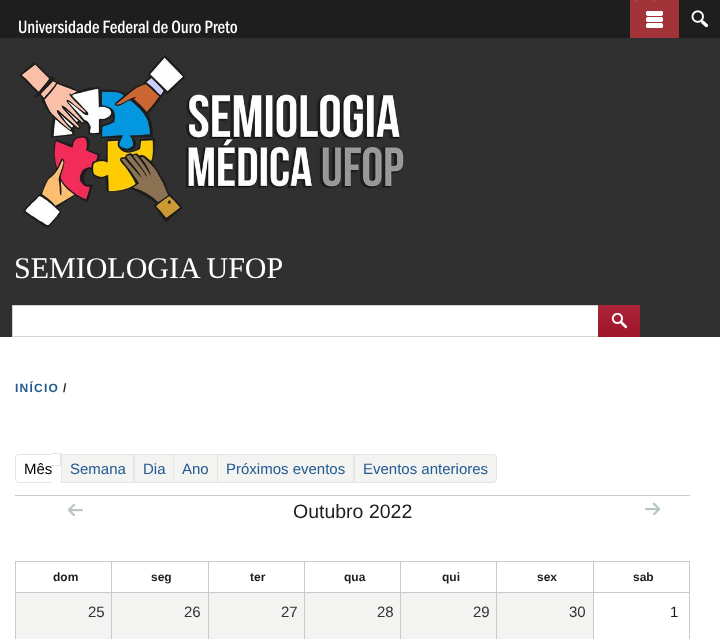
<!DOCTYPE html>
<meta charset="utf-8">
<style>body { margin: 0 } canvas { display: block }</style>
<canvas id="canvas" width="720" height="639"></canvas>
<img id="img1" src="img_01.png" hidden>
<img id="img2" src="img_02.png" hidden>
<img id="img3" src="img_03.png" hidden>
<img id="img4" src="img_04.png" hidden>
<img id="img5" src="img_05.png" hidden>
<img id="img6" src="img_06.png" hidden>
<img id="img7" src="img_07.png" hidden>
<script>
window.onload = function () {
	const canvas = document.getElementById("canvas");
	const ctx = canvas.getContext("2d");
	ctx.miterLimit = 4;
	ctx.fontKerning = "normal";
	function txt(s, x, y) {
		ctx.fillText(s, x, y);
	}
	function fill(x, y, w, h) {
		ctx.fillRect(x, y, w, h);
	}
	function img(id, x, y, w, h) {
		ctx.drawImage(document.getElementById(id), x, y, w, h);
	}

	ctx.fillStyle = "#FFFFFF";
	fill(0, 0, 720, 639);
	ctx.fillStyle = "#1E1E1E";
	fill(0, 0, 720, 38);
	img("img1", 19, 20, 219, 14);
	ctx.fillStyle = "#A23338";
	fill(630, 0, 49, 38);
	img("img2", 635, 0, 28, 28);
	img("img3", 691, 10, 18, 18);
	ctx.fillStyle = "#303030";
	fill(0, 38, 720, 299);
	img("img4", 15, 55, 390, 173);
	ctx.fillStyle = "#FFFFFF";
	fill(13, 306, 585, 30);
	ctx.strokeStyle = "#D4D4D2";
	ctx.strokeRect(12.5, 305.5, 623, 31);
	img("img5", 598, 305, 42, 32);
	ctx.fillStyle = "#E4E4E4";
	ctx.beginPath();
	ctx.moveTo(19, 454);
	ctx.lineTo(52, 454);
	ctx.lineTo(52, 483);
	ctx.lineTo(19, 483);
	ctx.bezierCurveTo(17, 483, 15, 481, 15, 479);
	ctx.lineTo(15, 458);
	ctx.bezierCurveTo(15, 456, 17, 454, 19, 454);
	ctx.closePath();
	ctx.moveTo(19, 455);
	ctx.lineTo(52, 455);
	ctx.lineTo(52, 482);
	ctx.lineTo(19, 482);
	ctx.bezierCurveTo(17.5, 482, 16, 480.5, 16, 479);
	ctx.lineTo(16, 458);
	ctx.bezierCurveTo(16, 456.5, 17.5, 455, 19, 455);
	ctx.closePath();
	ctx.fill("evenodd");
	ctx.fillStyle = "#FFFFFF";
	fill(51, 454, 1, 1);
	ctx.fillStyle = "#E4E4E4";
	fill(51, 453, 10, 1);
	fill(60, 453, 1, 13);
	fill(51, 465, 10, 1);
	ctx.fillStyle = "#F3F3F1";
	ctx.beginPath();
	ctx.rect(61.5, 454.5, 72, 28);
	ctx.fill();
	ctx.strokeStyle = "#E4E4E4";
	ctx.stroke();
	ctx.beginPath();
	ctx.rect(134.5, 454.5, 39, 28);
	ctx.fill();
	ctx.stroke();
	ctx.beginPath();
	ctx.rect(173.5, 454.5, 44, 28);
	ctx.fill();
	ctx.stroke();
	ctx.beginPath();
	ctx.rect(217.5, 454.5, 136, 28);
	ctx.fill();
	ctx.stroke();
	ctx.beginPath();
	ctx.roundRect(354.5, 454.5, 142, 28, [0, 3.5, 3.5, 0]);
	ctx.fill();
	ctx.stroke();
	ctx.fillStyle = "#CACACA";
	fill(15, 495, 675, 1);
	img("img6", 68, 503, 15, 13);
	img("img7", 645, 502, 15, 13);
	fill(593, 561, 97, 1);
	fill(593, 592, 97, 1);
	fill(593, 627, 1, 12);
	fill(593, 592, 1, 36);
	fill(496, 592, 98, 1);
	fill(593, 561, 1, 32);
	fill(496, 561, 98, 1);
	fill(496, 627, 1, 12);
	fill(496, 592, 1, 36);
	fill(400, 592, 97, 1);
	fill(496, 561, 1, 32);
	fill(400, 561, 97, 1);
	fill(400, 627, 1, 12);
	fill(400, 592, 1, 36);
	fill(304, 592, 97, 1);
	fill(400, 561, 1, 32);
	fill(304, 561, 97, 1);
	fill(304, 627, 1, 12);
	fill(304, 592, 1, 36);
	fill(208, 592, 97, 1);
	fill(304, 561, 1, 32);
	fill(208, 561, 97, 1);
	fill(208, 627, 1, 12);
	fill(208, 592, 1, 36);
	fill(111, 592, 98, 1);
	fill(208, 561, 1, 32);
	fill(111, 561, 98, 1);
	fill(111, 627, 1, 12);
	fill(111, 592, 1, 36);
	fill(15, 592, 97, 1);
	fill(111, 561, 1, 32);
	fill(15, 561, 97, 1);
	fill(15, 627, 1, 12);
	fill(15, 592, 1, 36);
	fill(15, 561, 1, 32);
	fill(689, 627, 1, 12);
	fill(689, 592, 1, 36);
	fill(689, 561, 1, 32);
	ctx.fillStyle = "#F3F3F2";
	fill(16, 593, 95, 46);
	fill(112, 593, 96, 46);
	fill(209, 593, 95, 46);
	fill(305, 593, 95, 46);
	fill(401, 593, 95, 46);
	fill(497, 593, 96, 46);
	ctx.font = "30px Liberation Serif";
	ctx.fillStyle = "#FFFFFF";
	txt("SEMIOLOGIA UFOP", 14, 278);
	ctx.letterSpacing = "1.25px";
	ctx.font = "bold 12px Liberation Sans";
	ctx.fillStyle = "#215990";
	txt("INÍCIO", 15, 392);
	ctx.fillStyle = "#1E1E1E";
	txt("/", 63, 392);
	ctx.letterSpacing = "0px";
	ctx.font = "15px Liberation Sans";
	ctx.fillStyle = "#000000";
	txt("Mês", 24, 474);
	ctx.fillStyle = "#215990";
	txt("Semana", 70, 474);
	txt("Dia", 143, 474);
	txt("Ano", 182, 474);
	txt("Próximos eventos", 226, 474);
	txt("Eventos anteriores", 363, 474);
	ctx.font = "19.5px Liberation Sans";
	ctx.fillStyle = "#1E1E1E";
	txt("Outubro 2022", 293, 518);
	ctx.font = "bold 12px Liberation Sans";
	txt("dom", 53, 581);
	txt("seg", 151, 581);
	txt("ter", 250, 581);
	txt("qua", 344, 581);
	txt("qui", 442, 581);
	txt("sex", 537, 581);
	txt("sab", 633, 581);
	ctx.font = "15px Liberation Sans";
	ctx.fillStyle = "#303030";
	txt("25", 88, 617);
	txt("26", 184, 617);
	txt("27", 281, 617);
	txt("28", 377, 617);
	txt("29", 473, 617);
	txt("30", 569, 617);
	ctx.fillStyle = "#1E1E1E";
	txt("1", 670, 617);
};
</script>
